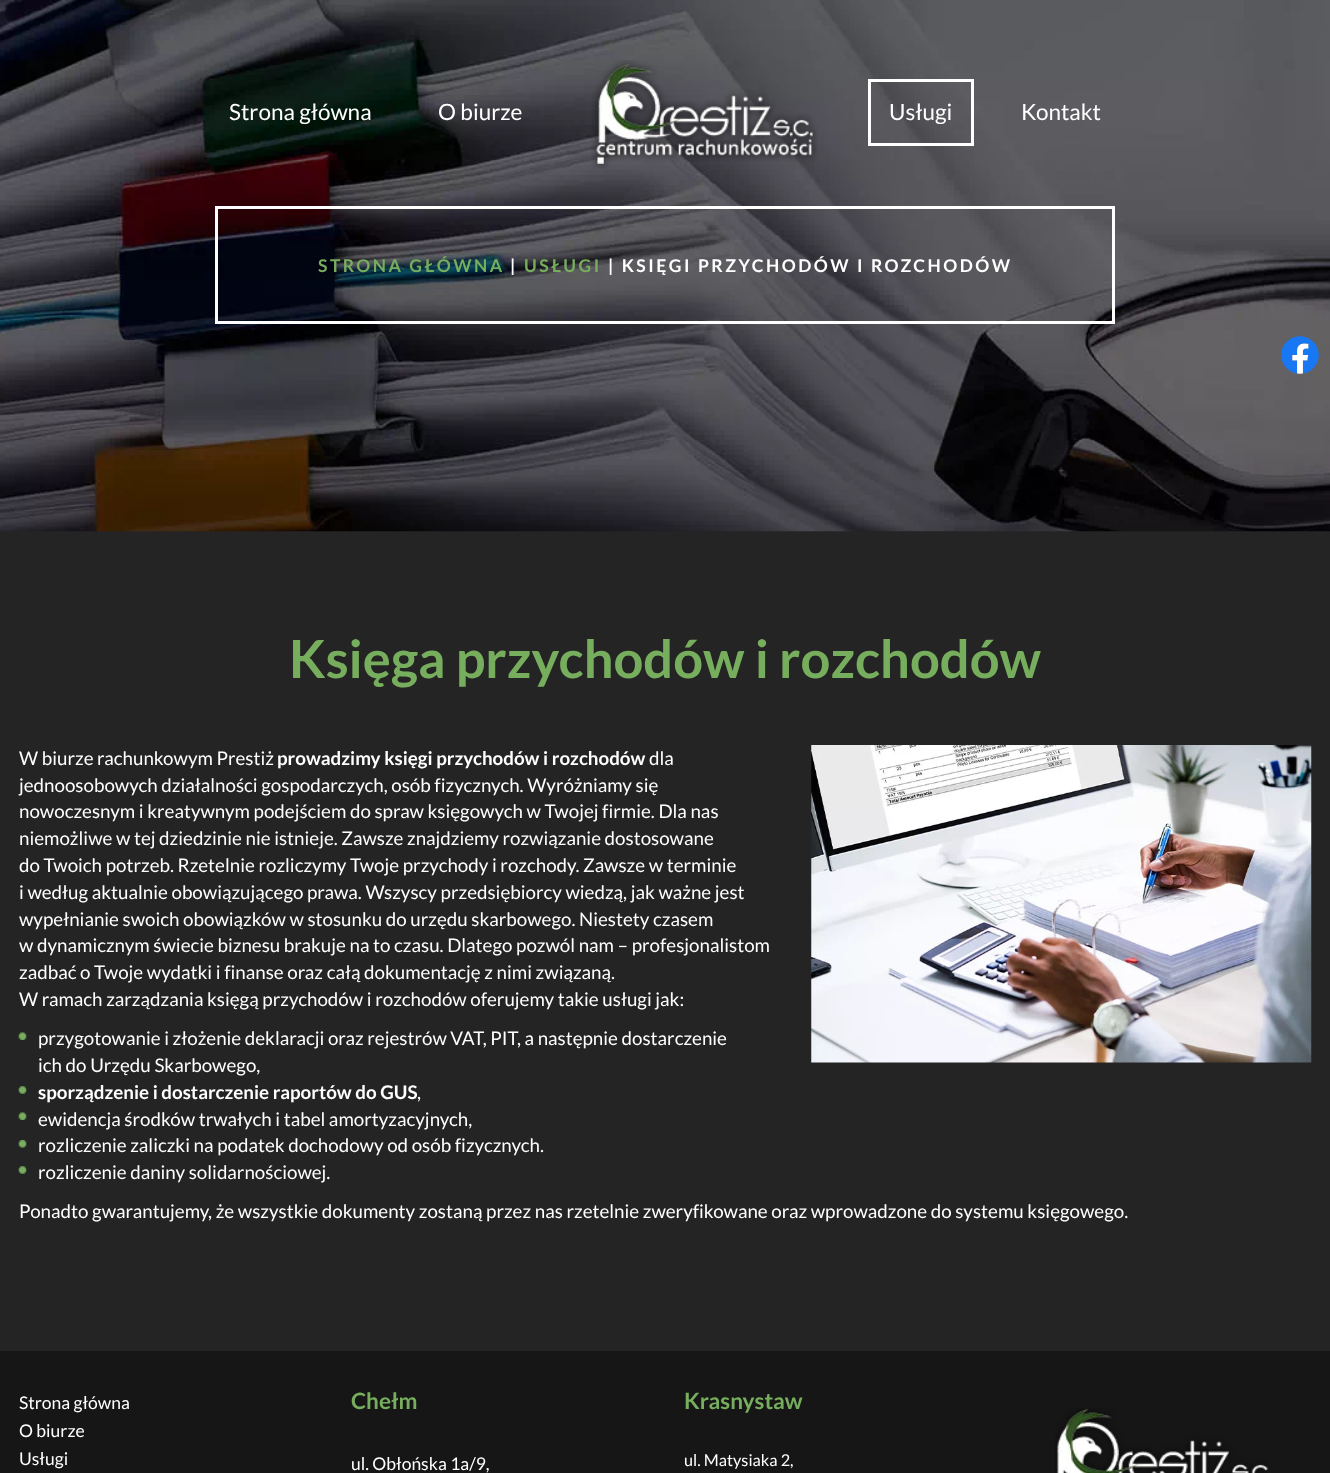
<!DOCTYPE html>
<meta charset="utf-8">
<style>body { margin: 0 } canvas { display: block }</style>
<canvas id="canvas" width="1330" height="1473"></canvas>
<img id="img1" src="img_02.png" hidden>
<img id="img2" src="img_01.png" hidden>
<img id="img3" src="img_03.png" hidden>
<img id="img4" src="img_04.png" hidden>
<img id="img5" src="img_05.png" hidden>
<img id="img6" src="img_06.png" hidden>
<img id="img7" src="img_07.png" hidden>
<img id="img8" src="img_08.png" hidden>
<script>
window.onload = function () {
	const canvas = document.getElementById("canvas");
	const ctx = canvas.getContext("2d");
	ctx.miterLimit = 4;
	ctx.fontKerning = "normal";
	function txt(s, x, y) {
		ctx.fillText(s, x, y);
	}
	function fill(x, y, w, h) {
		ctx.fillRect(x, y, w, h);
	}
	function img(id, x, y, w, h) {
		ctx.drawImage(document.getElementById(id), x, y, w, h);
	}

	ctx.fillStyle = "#242424";
	fill(0, 0, 1330, 1473);
	img("img1", 0, 0, 1330, 532);
	img("img2", 591, 60, 226, 109);
	ctx.strokeStyle = "#FFFFFF";
	ctx.lineWidth = 3;
	ctx.strokeRect(869.5, 80.5, 103, 64);
	ctx.strokeRect(216.5, 207.5, 897, 115);
	img("img3", 811, 745, 501, 318);
	img("img4", 18, 1032, 9, 8);
	img("img5", 18, 1086, 9, 8);
	img("img4", 18, 1112, 9, 8);
	img("img6", 18, 1140, 9, 8);
	img("img5", 18, 1166, 9, 8);
	img("img7", 1281, 336, 38, 38);
	ctx.fillStyle = "#161616";
	fill(0, 1351, 1330, 122);
	img("img8", 1055, 1408, 213, 65);
	ctx.font = "22.5px Lato";
	ctx.fillStyle = "#FFFFFF";
	txt("Strona główna", 229, 120);
	txt("O biurze", 438, 120);
	txt("Usługi", 889, 120);
	txt("Kontakt", 1021, 120);
	ctx.letterSpacing = "2.5px";
	ctx.font = "bold 17.5px Lato";
	ctx.fillStyle = "#77AE5E";
	txt("STRONA GŁÓWNA", 318, 272);
	ctx.fillStyle = "#FFFFFF";
	txt("|", 510, 272);
	ctx.fillStyle = "#77AE5E";
	txt("USŁUGI", 524, 272);
	ctx.fillStyle = "#FFFFFF";
	txt("| KSIĘGI PRZYCHODÓW I ROZCHODÓW", 608, 272);
	ctx.letterSpacing = "0px";
	ctx.font = "bold 52.5px Lato";
	ctx.fillStyle = "#77AE5E";
	txt("Księga przychodów i rozchodów", 289, 678);
	ctx.font = "18.75px Lato";
	ctx.fillStyle = "#FFFFFF";
	txt("W biurze rachunkowym Prestiż", 19, 765);
	ctx.font = "bold 18.75px Lato";
	txt("prowadzimy księgi przychodów i rozchodów", 277, 765);
	ctx.font = "18.75px Lato";
	txt("dla", 649, 765);
	txt("jednoosobowych działalności gospodarczych, osób fizycznych. Wyróżniamy się", 19, 792);
	txt("nowoczesnym i kreatywnym podejściem do spraw księgowych w Twojej firmie. Dla nas", 19, 818);
	txt("niemożliwe w tej dziedzinie nie istnieje. Zawsze znajdziemy rozwiązanie dostosowane", 19, 845);
	txt("do Twoich potrzeb. Rzetelnie rozliczymy Twoje przychody i rozchody. Zawsze w terminie", 19, 872);
	txt("i według aktualnie obowiązującego prawa. Wszyscy przedsiębiorcy wiedzą, jak ważne jest", 19, 899);
	txt("wypełnianie swoich obowiązków w stosunku do urzędu skarbowego. Niestety czasem", 19, 926);
	txt("w dynamicznym świecie biznesu brakuje na to czasu. Dlatego pozwól nam – profesjonalistom", 19, 952);
	txt("zadbać o Twoje wydatki i finanse oraz całą dokumentację z nimi związaną.", 19, 979);
	txt("W ramach zarządzania księgą przychodów i rozchodów oferujemy takie usługi jak:", 19, 1006);
	txt("przygotowanie i złożenie deklaracji oraz rejestrów VAT, PIT, a następnie dostarczenie", 38, 1045);
	txt("ich do Urzędu Skarbowego,", 38, 1072);
	ctx.font = "bold 18.75px Lato";
	txt("sporządzenie i dostarczenie raportów do GUS", 38, 1099);
	ctx.font = "18.75px Lato";
	txt(",", 417, 1099);
	txt("ewidencja środków trwałych i tabel amortyzacyjnych,", 38, 1126);
	txt("rozliczenie zaliczki na podatek dochodowy od osób fizycznych.", 38, 1152);
	txt("rozliczenie daniny solidarnościowej.", 38, 1179);
	txt("Ponadto gwarantujemy, że wszystkie dokumenty zostaną przez nas rzetelnie zweryfikowane oraz wprowadzone do systemu księgowego.", 19, 1218);
	ctx.font = "17.5px Lato";
	txt("Strona główna", 19, 1409);
	txt("O biurze", 19, 1437);
	txt("Usługi", 19, 1465);
	ctx.font = "bold 22.5px Lato";
	ctx.fillStyle = "#77AE5E";
	txt("Chełm", 351, 1409);
	ctx.font = "17.5px Lato";
	ctx.fillStyle = "#FFFFFF";
	txt("ul. Obłońska 1a/9,", 351, 1470);
	ctx.font = "bold 22.5px Lato";
	ctx.fillStyle = "#77AE5E";
	txt("Krasnystaw", 684, 1409);
	ctx.font = "16.25px Lato";
	ctx.fillStyle = "#FFFFFF";
	txt("ul. Matysiaka 2,", 684, 1466);
};
</script>
